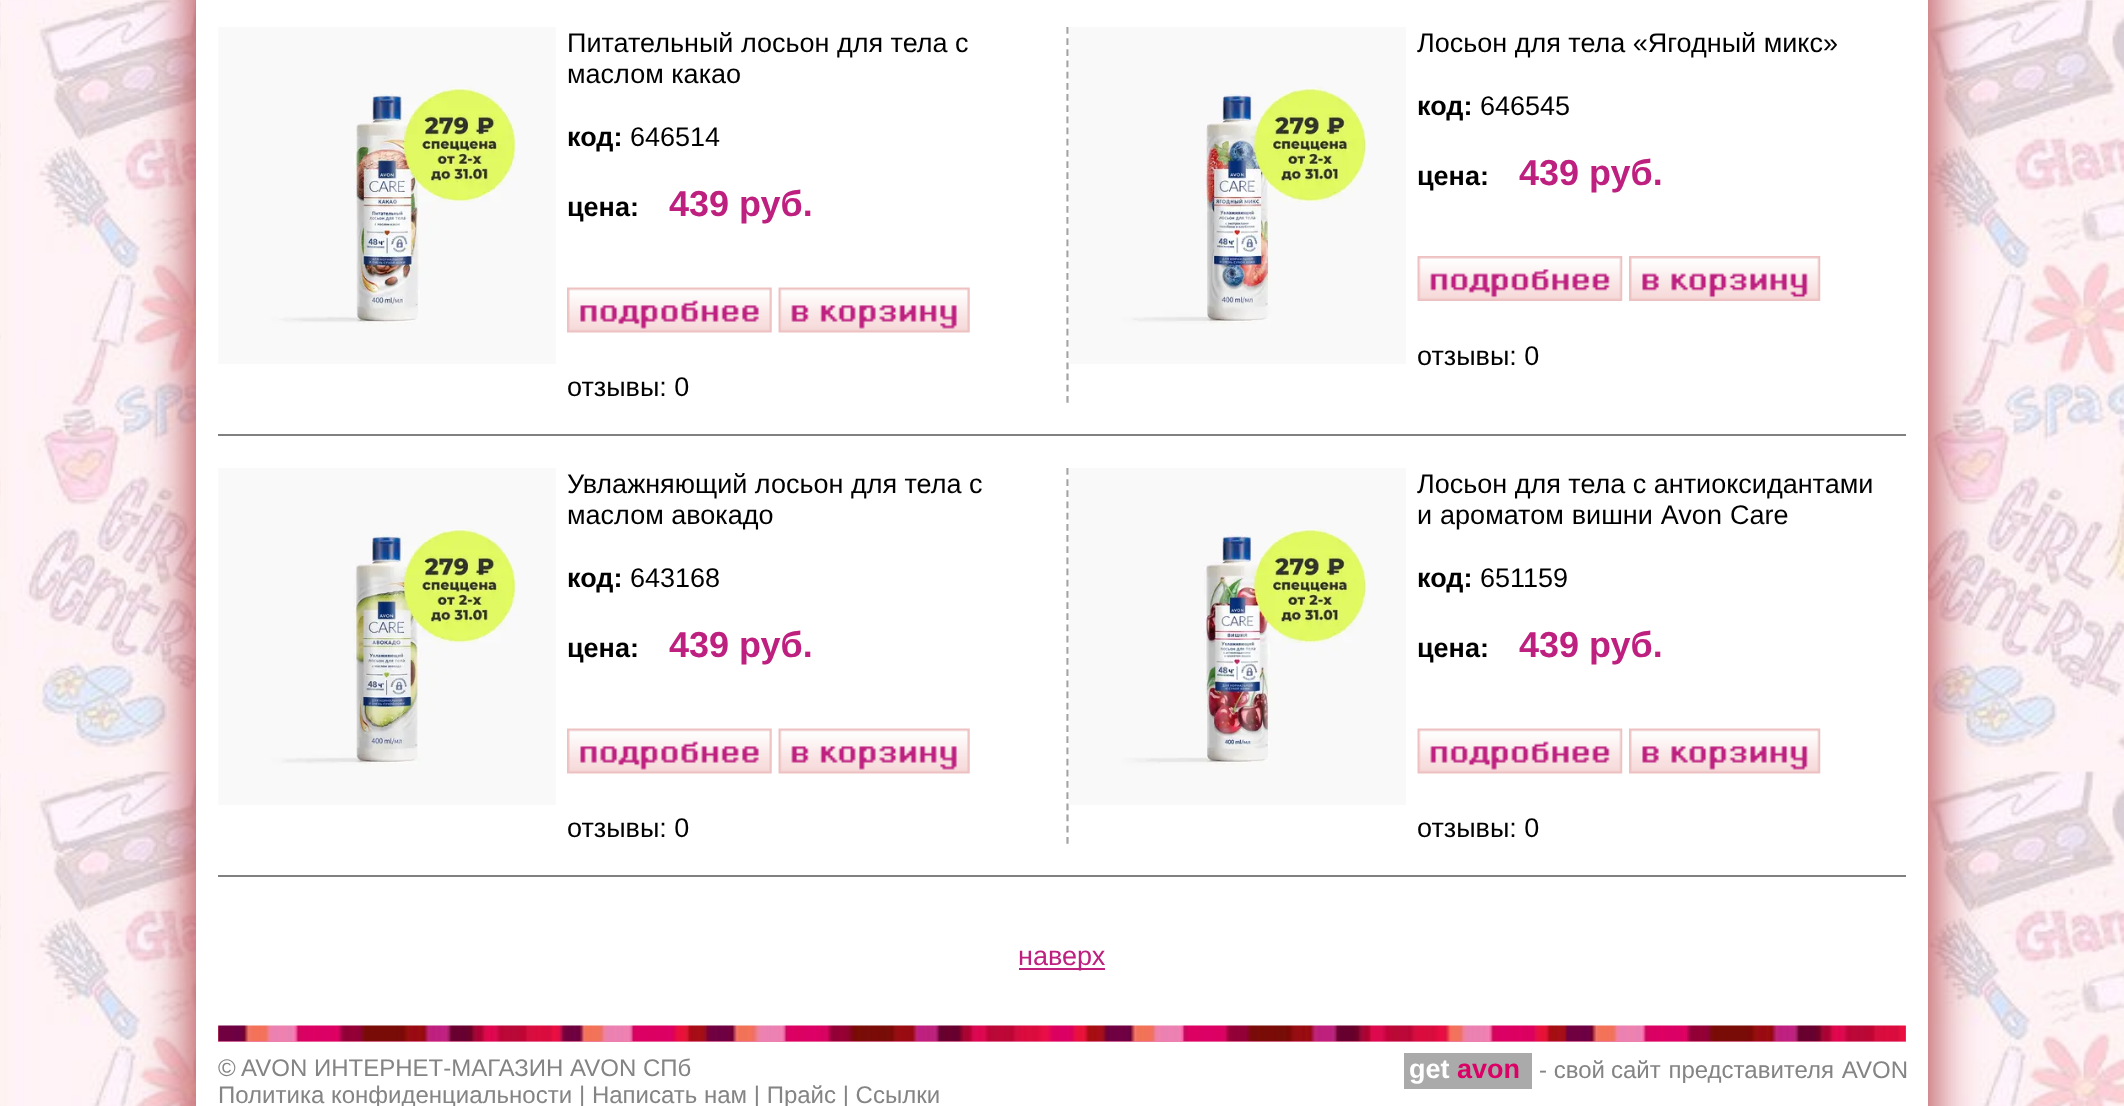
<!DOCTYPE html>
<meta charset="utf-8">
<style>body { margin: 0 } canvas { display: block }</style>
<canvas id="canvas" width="2124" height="1106"></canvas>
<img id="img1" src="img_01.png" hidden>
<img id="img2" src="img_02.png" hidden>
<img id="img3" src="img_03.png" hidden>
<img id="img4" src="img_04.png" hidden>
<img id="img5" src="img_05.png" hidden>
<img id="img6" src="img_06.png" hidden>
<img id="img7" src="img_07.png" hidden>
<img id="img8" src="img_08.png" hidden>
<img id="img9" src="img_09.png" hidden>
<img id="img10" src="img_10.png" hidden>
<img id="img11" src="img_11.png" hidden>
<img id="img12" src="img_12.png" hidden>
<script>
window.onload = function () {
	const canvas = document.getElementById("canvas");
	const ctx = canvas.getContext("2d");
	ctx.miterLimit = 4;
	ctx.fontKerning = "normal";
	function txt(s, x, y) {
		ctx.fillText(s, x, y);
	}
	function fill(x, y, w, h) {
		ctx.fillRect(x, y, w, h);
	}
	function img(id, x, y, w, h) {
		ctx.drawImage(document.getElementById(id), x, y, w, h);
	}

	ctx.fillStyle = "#FFFFFF";
	fill(0, 0, 2124, 1106);
	img("img1", 0, 0, 2124, 1106);
	ctx.fillStyle = "#B74D52";
	ctx.filter = "blur(22.5px)";
	ctx.beginPath();
	ctx.rect(270, -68, 1665, 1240);
	ctx.fill();
	ctx.filter = "none";
	ctx.filter = "blur(22.5px)";
	ctx.beginPath();
	ctx.rect(189, -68, 1665, 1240);
	ctx.fill();
	ctx.filter = "none";
	ctx.fillStyle = "#FFFFFF";
	fill(196, 0, 1732, 1106);
	img("img2", 218, 27, 338, 337);
	ctx.beginPath();
	ctx.moveTo(1067.5, 27);
	ctx.lineTo(1067.5, 403);
	ctx.strokeStyle = "#A5A2A2";
	ctx.lineWidth = 2.2;
	ctx.setLineDash([6.75, 4.43]);
	ctx.stroke();
	img("img3", 567, 287, 205, 46);
	img("img4", 778, 287, 192, 46);
	img("img5", 1068, 27, 338, 337);
	img("img6", 1417, 256, 206, 45);
	img("img7", 1629, 256, 192, 45);
	ctx.fillStyle = "#808080";
	fill(218, 434, 1688, 2);
	img("img8", 218, 468, 338, 337);
	ctx.beginPath();
	ctx.moveTo(1067.5, 468);
	ctx.lineTo(1067.5, 844);
	ctx.stroke();
	img("img3", 567, 728, 205, 46);
	img("img4", 778, 728, 192, 46);
	img("img9", 1068, 468, 338, 337);
	img("img10", 1417, 728, 206, 46);
	img("img11", 1629, 728, 192, 46);
	fill(218, 875, 1688, 2);
	ctx.fillStyle = "#BF2180";
	fill(1019, 968, 86, 2);
	ctx.fillStyle = "#EF81AE";
	fill(218, 1026, 1688, 16);
	img("img12", 218, 1025, 1688, 17);
	ctx.fillStyle = "#AAAAAA";
	fill(1404, 1053, 128, 36);
	ctx.font = "27px Liberation Sans";
	ctx.fillStyle = "#000000";
	txt("Питательный лосьон для тела с", 567, 52);
	txt("маслом какао", 567, 83);
	ctx.font = "bold 27px Liberation Sans";
	txt("код:", 567, 146);
	ctx.font = "27px Liberation Sans";
	txt("646514", 630, 146);
	ctx.font = "bold 27px Liberation Sans";
	txt("цена:", 567, 216);
	ctx.font = "bold 36px Liberation Sans";
	ctx.fillStyle = "#BD207F";
	txt("439 руб.", 669, 216);
	ctx.font = "27px Liberation Sans";
	ctx.fillStyle = "#000000";
	txt("отзывы: 0", 567, 396);
	txt("Лосьон для тела «Ягодный микс»", 1417, 52);
	ctx.font = "bold 27px Liberation Sans";
	txt("код:", 1417, 115);
	ctx.font = "27px Liberation Sans";
	txt("646545", 1480, 115);
	ctx.font = "bold 27px Liberation Sans";
	txt("цена:", 1417, 185);
	ctx.font = "bold 36px Liberation Sans";
	ctx.fillStyle = "#BD207F";
	txt("439 руб.", 1519, 185);
	ctx.font = "27px Liberation Sans";
	ctx.fillStyle = "#000000";
	txt("отзывы: 0", 1417, 365);
	txt("Увлажняющий лосьон для тела с", 567, 493);
	txt("маслом авокадо", 567, 524);
	ctx.font = "bold 27px Liberation Sans";
	txt("код:", 567, 587);
	ctx.font = "27px Liberation Sans";
	txt("643168", 630, 587);
	ctx.font = "bold 27px Liberation Sans";
	txt("цена:", 567, 657);
	ctx.font = "bold 36px Liberation Sans";
	ctx.fillStyle = "#BD207F";
	txt("439 руб.", 669, 657);
	ctx.font = "27px Liberation Sans";
	ctx.fillStyle = "#000000";
	txt("отзывы: 0", 567, 837);
	txt("Лосьон для тела с антиоксидантами", 1417, 493);
	ctx.wordSpacing = "0.5px";
	txt("и ароматом вишни Avon Care", 1417, 524);
	ctx.wordSpacing = "0px";
	ctx.font = "bold 27px Liberation Sans";
	txt("код:", 1417, 587);
	ctx.font = "27px Liberation Sans";
	txt("651159", 1480, 587);
	ctx.font = "bold 27px Liberation Sans";
	txt("цена:", 1417, 657);
	ctx.font = "bold 36px Liberation Sans";
	ctx.fillStyle = "#BD207F";
	txt("439 руб.", 1519, 657);
	ctx.font = "27px Liberation Sans";
	ctx.fillStyle = "#000000";
	txt("отзывы: 0", 1417, 837);
	ctx.fillStyle = "#BD207F";
	txt("наверх", 1018, 965);
	ctx.font = "24px Liberation Sans";
	ctx.fillStyle = "#848484";
	txt("©", 218, 1076);
	txt("AVON ИНТЕРНЕТ-МАГАЗИН AVON СПб", 241, 1076);
	txt("Политика конфиденциальности", 218, 1103);
	txt("| Написать нам | Прайс | Ссылки", 579, 1103);
	ctx.font = "bold 27px Liberation Sans";
	ctx.fillStyle = "#FFFFFF";
	txt("get", 1409, 1078);
	ctx.fillStyle = "#DB0066";
	txt("avon", 1457, 1078);
	ctx.font = "24px Liberation Sans";
	ctx.fillStyle = "#848484";
	txt("- свой", 1539, 1078);
	ctx.wordSpacing = "1px";
	txt("сайт представителя AVON", 1611, 1078);
};
</script>
